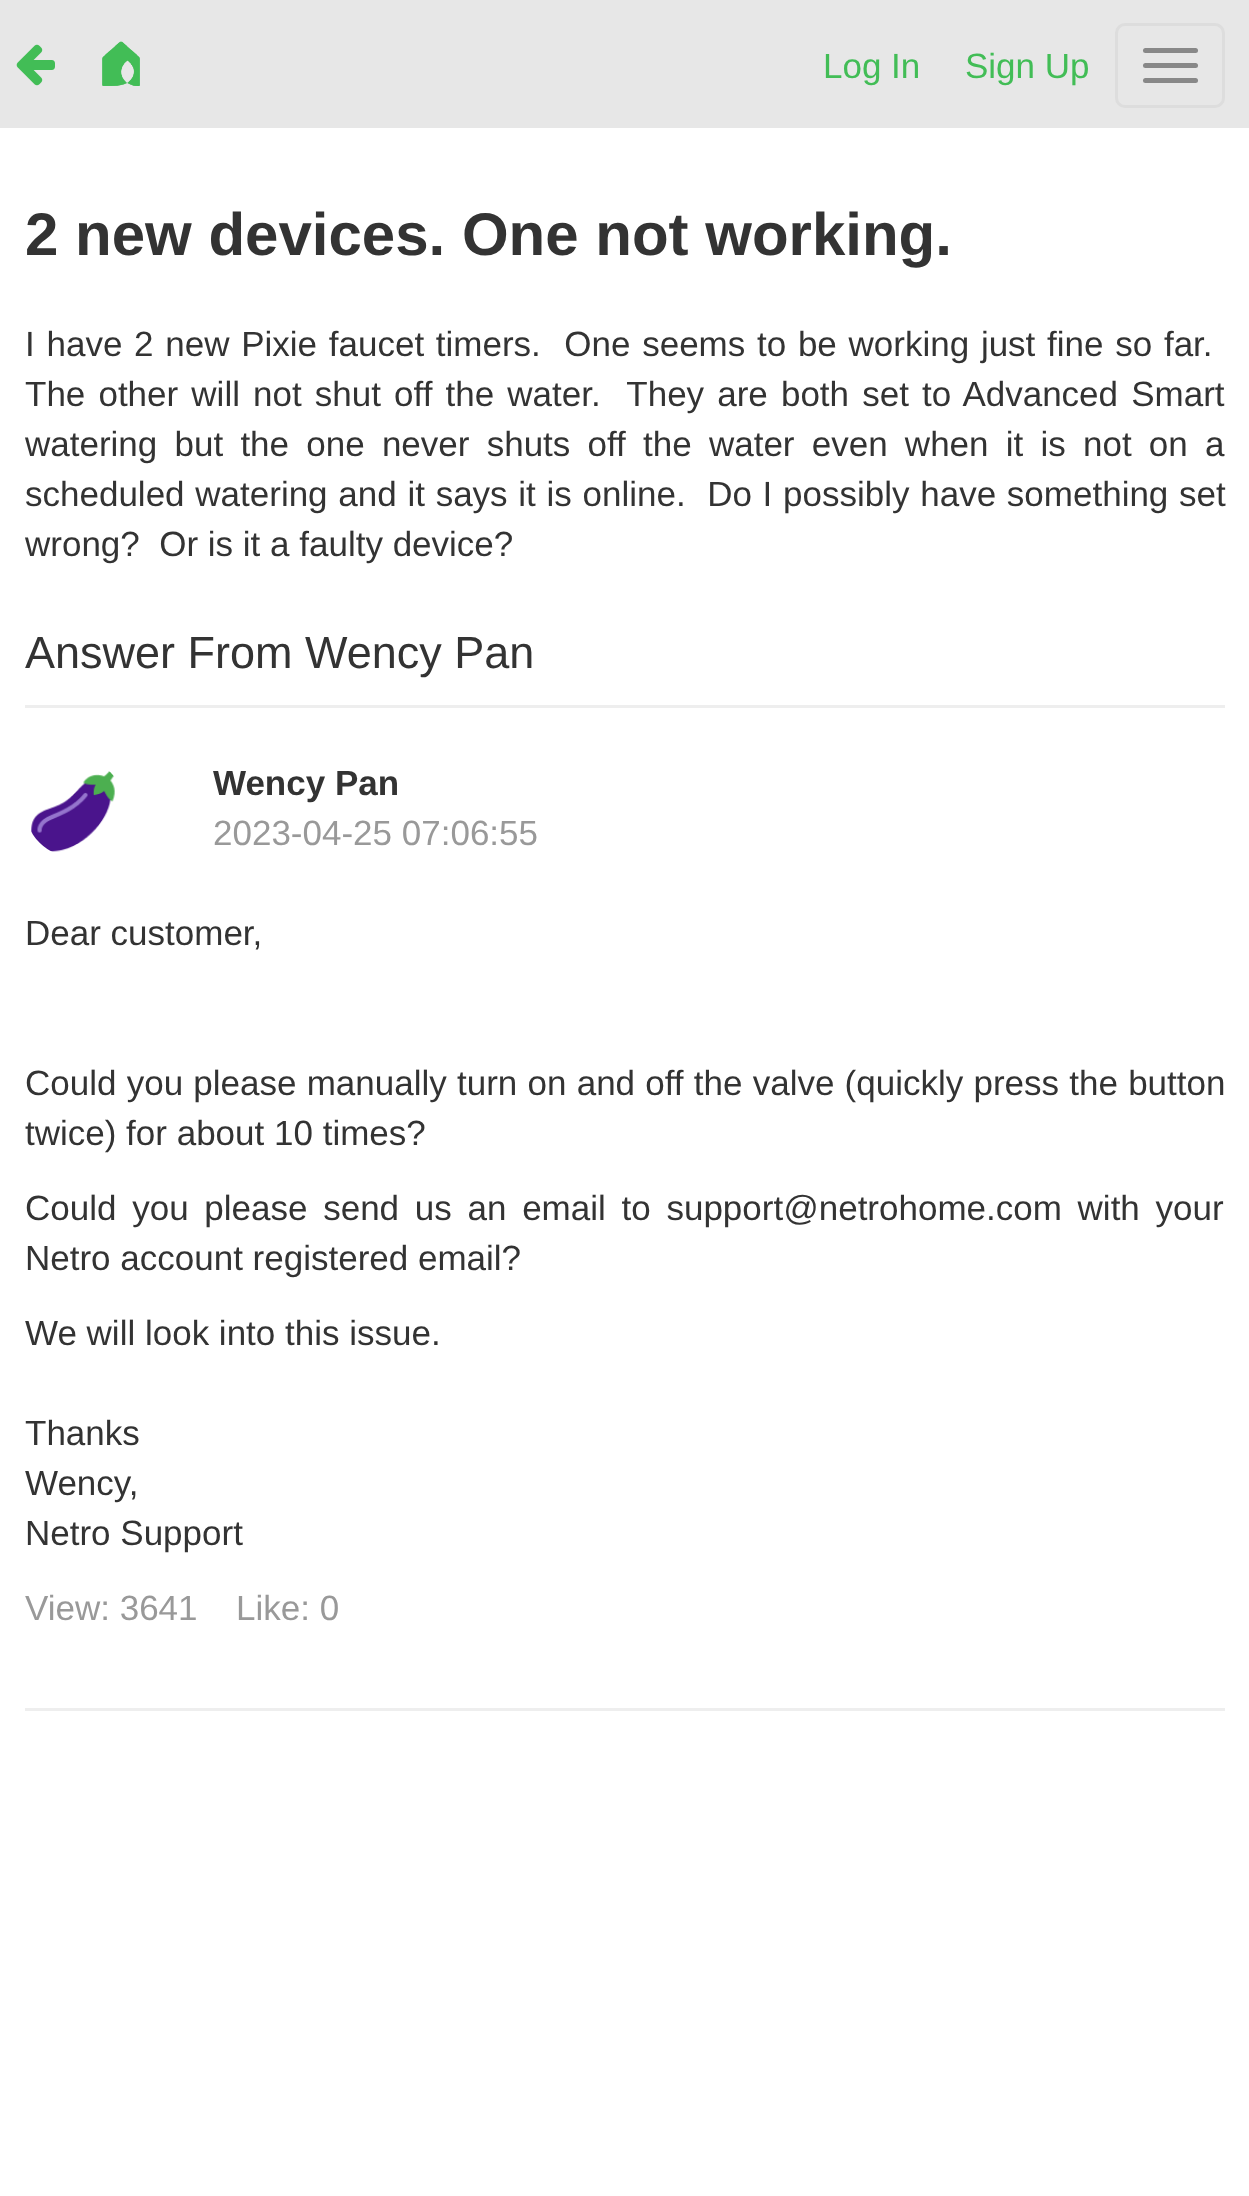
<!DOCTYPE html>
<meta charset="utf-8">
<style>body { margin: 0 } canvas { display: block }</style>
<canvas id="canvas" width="1249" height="2196"></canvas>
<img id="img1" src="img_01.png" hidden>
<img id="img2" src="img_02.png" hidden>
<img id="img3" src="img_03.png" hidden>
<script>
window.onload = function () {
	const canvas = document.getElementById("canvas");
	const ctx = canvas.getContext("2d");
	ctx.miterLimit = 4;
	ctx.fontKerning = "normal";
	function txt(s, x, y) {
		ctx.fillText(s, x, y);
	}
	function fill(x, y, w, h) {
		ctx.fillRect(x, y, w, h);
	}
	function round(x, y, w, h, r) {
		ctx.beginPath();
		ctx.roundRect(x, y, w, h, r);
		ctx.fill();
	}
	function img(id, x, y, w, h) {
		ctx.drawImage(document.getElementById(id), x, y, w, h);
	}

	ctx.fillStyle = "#FFFFFF";
	fill(0, 0, 1249, 2196);
	ctx.fillStyle = "#E7E7E7";
	fill(0, 0, 1249, 128);
	img("img1", 16, 44, 39, 42);
	img("img2", 102, 41, 38, 45);
	ctx.beginPath();
	ctx.roundRect(1116.5, 24.5, 107, 82, 8.5);
	ctx.strokeStyle = "#DDDDDD";
	ctx.lineWidth = 3;
	ctx.stroke();
	ctx.fillStyle = "#888888";
	round(1143, 48, 55, 5, 2.5);
	round(1143, 63, 55, 5, 2.5);
	round(1143, 78, 55, 5, 2.5);
	ctx.fillStyle = "#EEEEEE";
	fill(25, 705, 1200, 3);
	img("img3", 31, 771, 84, 81);
	fill(25, 1708, 1200, 3);
	ctx.font = "35px Liberation Sans";
	ctx.fillStyle = "#42BD56";
	txt("Log In", 823, 78);
	txt("Sign Up", 965, 78);
	ctx.font = "bold 60px Liberation Sans";
	ctx.fillStyle = "#333333";
	txt("2 new devices. One not working.", 25, 255);
	ctx.wordSpacing = "2px";
	ctx.font = "35px Liberation Sans";
	txt("I have 2 new Pixie faucet timers.  One seems to be working just fine so far.", 25, 356);
	ctx.wordSpacing = "3.4px";
	txt("The other will not shut off the water.  They are both set to Advanced Smart", 25, 406);
	ctx.wordSpacing = "7.5px";
	txt("watering but the one never shuts off the water even when it is not on a", 25, 456);
	ctx.wordSpacing = "1px";
	txt("scheduled watering and it says it is online.  Do I possibly have something set", 25, 506);
	ctx.wordSpacing = "0px";
	txt("wrong?  Or is it a faulty device?", 25, 556);
	ctx.font = "45px Liberation Sans";
	txt("Answer From Wency Pan", 25, 668);
	ctx.font = "bold 35px Liberation Sans";
	txt("Wency Pan", 213, 795);
	ctx.font = "35px Liberation Sans";
	ctx.fillStyle = "#999999";
	txt("2023-04-25 07:06:55", 213, 845);
	ctx.fillStyle = "#333333";
	txt("Dear customer,", 25, 945);
	ctx.wordSpacing = "0.5px";
	txt("Could you please manually turn on and off the valve (quickly press the button", 25, 1095);
	ctx.wordSpacing = "0px";
	txt("twice) for about 10 times?", 25, 1145);
	ctx.wordSpacing = "6px";
	txt("Could you please send us an email to support@netrohome.com with your", 25, 1220);
	ctx.wordSpacing = "0px";
	txt("Netro account registered email?", 25, 1270);
	txt("We will look into this issue.", 25, 1345);
	txt("Thanks", 25, 1445);
	txt("Wency,", 25, 1495);
	txt("Netro Support", 25, 1545);
	ctx.fillStyle = "#999999";
	txt("View: 3641", 25, 1620);
	txt("Like: 0", 236, 1620);
};
</script>
